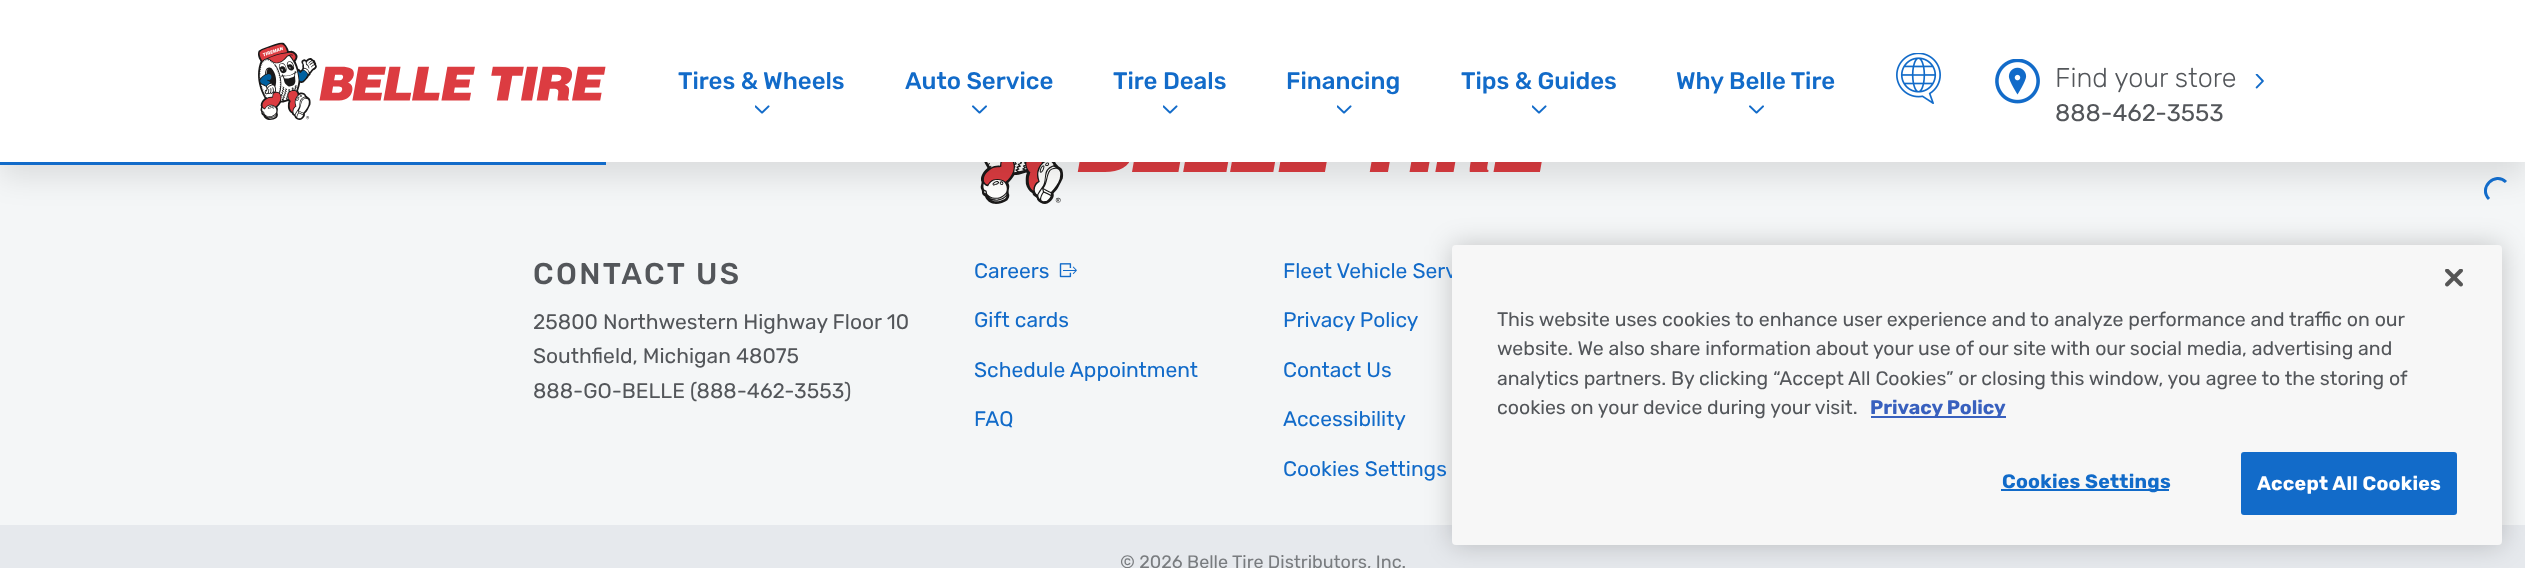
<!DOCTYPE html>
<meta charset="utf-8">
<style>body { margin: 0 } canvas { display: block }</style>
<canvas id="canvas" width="2525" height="568"></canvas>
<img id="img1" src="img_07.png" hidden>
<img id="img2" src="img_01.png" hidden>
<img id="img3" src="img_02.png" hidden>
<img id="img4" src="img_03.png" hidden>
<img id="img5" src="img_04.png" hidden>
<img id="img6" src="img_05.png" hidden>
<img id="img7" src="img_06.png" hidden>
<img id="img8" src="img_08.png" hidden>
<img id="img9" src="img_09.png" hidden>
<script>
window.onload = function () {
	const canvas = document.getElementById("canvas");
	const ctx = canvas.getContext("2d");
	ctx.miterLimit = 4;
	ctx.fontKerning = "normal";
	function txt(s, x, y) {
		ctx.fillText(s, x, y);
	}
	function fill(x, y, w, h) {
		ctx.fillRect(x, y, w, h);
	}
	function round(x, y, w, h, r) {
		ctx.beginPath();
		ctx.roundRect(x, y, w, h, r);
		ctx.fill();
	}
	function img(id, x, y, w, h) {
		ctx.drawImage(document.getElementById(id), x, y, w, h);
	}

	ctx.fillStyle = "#F4F6F7";
	fill(0, 0, 2525, 568);
	img("img1", 980, 162, 562, 42);
	ctx.fillStyle = "rgba(0, 0, 0, 0.1)";
	ctx.filter = "blur(15px)";
	ctx.beginPath();
	ctx.rect(0, 15, 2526, 162);
	ctx.fill();
	ctx.filter = "none";
	ctx.fillStyle = "#FFFFFF";
	fill(0, 0, 2525, 162);
	img("img2", 258, 42, 348, 78);
	img("img3", 755, 105, 15, 9);
	img("img4", 972, 105, 15, 9);
	img("img3", 1163, 105, 15, 9);
	img("img3", 1337, 105, 15, 9);
	img("img3", 1532, 105, 15, 9);
	img("img4", 1749, 105, 15, 9);
	img("img5", 1896, 53, 45, 51);
	img("img6", 1995, 59, 45, 45);
	img("img7", 2255, 74, 9, 15);
	ctx.fillStyle = "#126BC9";
	fill(0, 162, 606, 3);
	ctx.beginPath();
	ctx.moveTo(2489, 199);
	ctx.bezierCurveTo(2478, 188, 2495, 171, 2506, 182);
	ctx.strokeStyle = "#126BC9";
	ctx.lineWidth = 3;
	ctx.stroke();
	img("img8", 1059, 263, 18, 15);
	ctx.fillStyle = "#E6E9ED";
	fill(0, 525, 2525, 43);
	ctx.fillStyle = "rgba(0, 0, 0, 0.2)";
	ctx.filter = "blur(13.5px)";
	ctx.beginPath();
	ctx.roundRect(1452, 245, 1050, 300, 4);
	ctx.fill();
	ctx.filter = "none";
	ctx.font = "500 24px Rubik";
	ctx.fillStyle = "#126BC9";
	txt("Tires & Wheels", 678, 89);
	txt("Auto Service", 905, 89);
	txt("Tire Deals", 1113, 89);
	txt("Financing", 1286, 89);
	txt("Tips & Guides", 1461, 89);
	txt("Why Belle Tire", 1676, 89);
	ctx.font = "300 27px Rubik";
	ctx.fillStyle = "#53565A";
	txt("Find your store", 2055, 87);
	ctx.font = "24px Rubik";
	txt("888-462-3553", 2055, 121);
	ctx.letterSpacing = "2.4px";
	ctx.font = "500 30px Rubik";
	txt("CONTACT US", 533, 284);
	ctx.letterSpacing = "0px";
	ctx.font = "21px Rubik";
	txt("25800 Northwestern Highway Floor 10", 533, 329);
	txt("Southfield, Michigan 48075", 533, 363);
	txt("888-GO-BELLE (888-462-3553)", 533, 398);
	ctx.fillStyle = "#126BC9";
	txt("Careers", 974, 278);
	txt("Gift cards", 974, 327);
	txt("Schedule Appointment", 974, 377);
	txt("FAQ", 974, 426);
	txt("Fleet Vehicle Serv", 1283, 278);
	txt("Privacy Policy", 1283, 327);
	txt("Contact Us", 1283, 377);
	txt("Accessibility", 1283, 426);
	txt("Cookies Settings", 1283, 476);
	ctx.font = "18px Rubik";
	ctx.fillStyle = "#797C7F";
	txt("© 2026 Belle Tire Distributors, Inc.", 1120, 568);
	ctx.fillStyle = "#F7F7F7";
	round(1452, 245, 1050, 300, 4);
	img("img9", 2445, 269, 18, 18);
	ctx.font = "19.5px Rubik";
	ctx.fillStyle = "#53565A";
	txt("This website uses cookies to enhance user experience and to analyze performance and traffic on our", 1497, 326);
	txt("website. We also share information about your use of our site with our social media, advertising and", 1497, 355);
	txt("analytics partners. By clicking “Accept All Cookies” or closing this window, you agree to the storing of", 1497, 385);
	txt("cookies on your device during your visit.", 1497, 414);
	ctx.fillStyle = "#3860BE";
	fill(1871, 416, 135, 2);
	ctx.font = "bold 19.5px Rubik";
	txt("Privacy Policy", 1870, 414);
	ctx.fillStyle = "#126BC9";
	fill(2001, 489, 168, 2);
	ctx.letterSpacing = "0.25px";
	txt("Cookies Settings", 2002, 488);
	ctx.beginPath();
	ctx.roundRect(2242, 453, 214, 61, 2);
	ctx.fill();
	ctx.lineWidth = 2;
	ctx.stroke();
	ctx.fillStyle = "#FFFFFF";
	txt("Accept All Cookies", 2257, 490);
};
</script>
